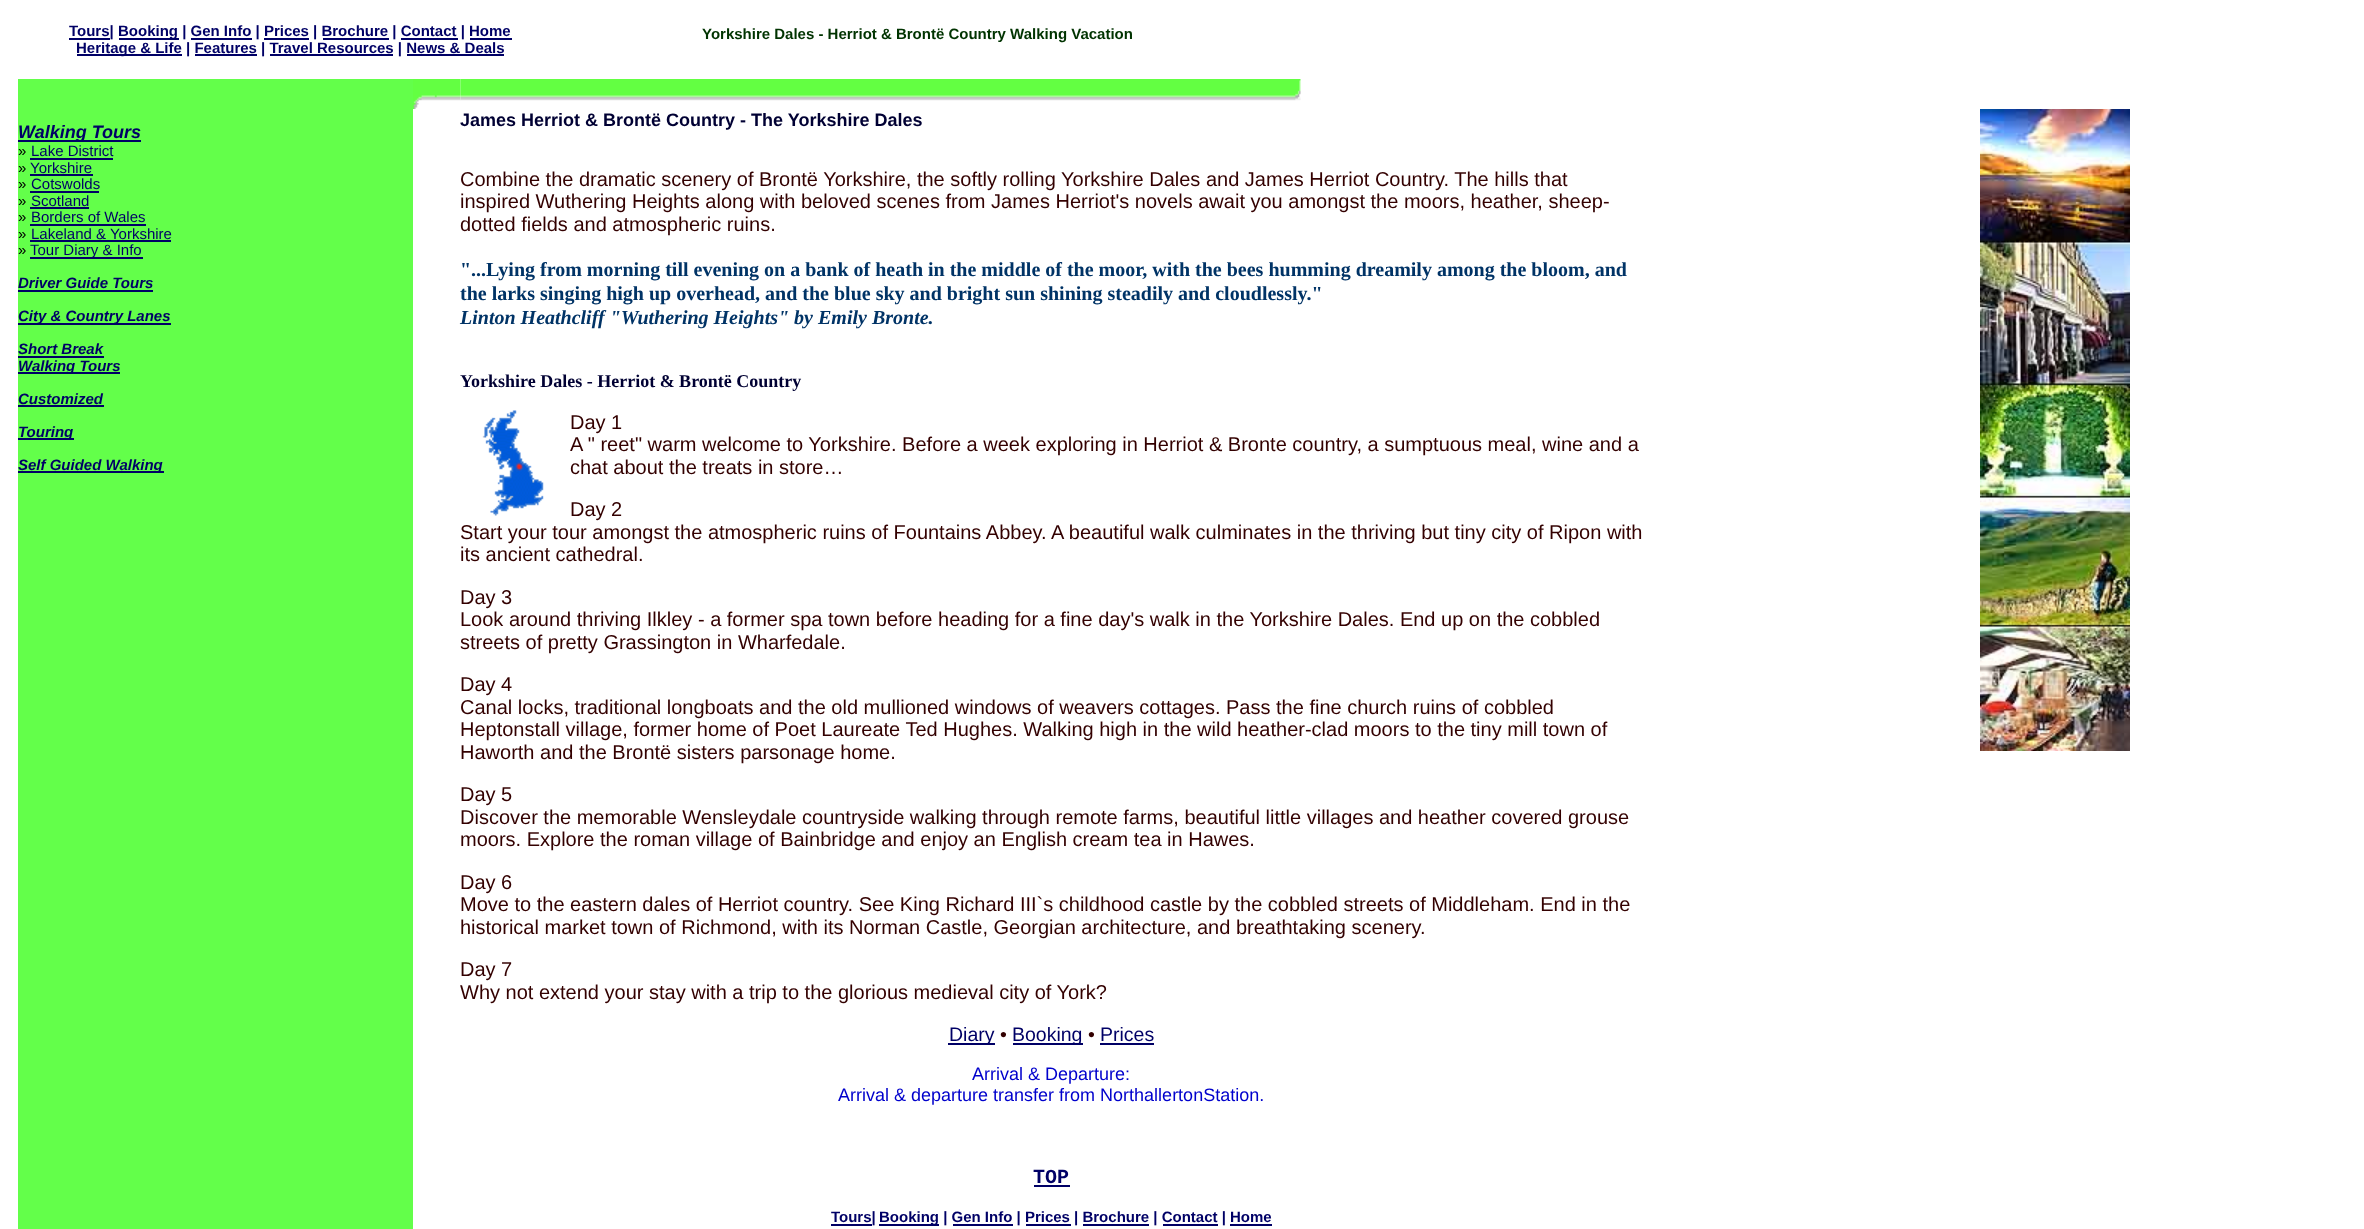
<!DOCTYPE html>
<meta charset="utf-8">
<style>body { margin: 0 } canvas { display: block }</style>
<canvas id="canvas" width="2364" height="1229"></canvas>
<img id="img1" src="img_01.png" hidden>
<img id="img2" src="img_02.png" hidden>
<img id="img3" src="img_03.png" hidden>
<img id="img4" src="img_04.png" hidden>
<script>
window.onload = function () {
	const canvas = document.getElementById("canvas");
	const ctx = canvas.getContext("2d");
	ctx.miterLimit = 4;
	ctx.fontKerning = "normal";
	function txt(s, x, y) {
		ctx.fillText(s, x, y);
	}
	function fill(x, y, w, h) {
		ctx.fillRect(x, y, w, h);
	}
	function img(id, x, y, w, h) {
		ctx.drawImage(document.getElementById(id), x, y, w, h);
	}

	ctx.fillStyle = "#FFFFFF";
	fill(0, 0, 2364, 1229);
	ctx.fillStyle = "#000066";
	fill(69, 38, 41, 2);
	fill(119, 38, 60, 2);
	fill(191, 38, 61, 2);
	fill(264, 38, 45, 2);
	fill(323, 38, 66, 2);
	fill(401, 38, 57, 2);
	fill(470, 38, 42, 2);
	fill(77, 54, 105, 2);
	fill(195, 54, 62, 2);
	fill(270, 54, 123, 2);
	fill(407, 54, 97, 2);
	ctx.fillStyle = "#63FF4A";
	fill(18, 79, 395, 1150);
	img("img1", 413, 79, 48, 30);
	img("img2", 460, 79, 841, 22);
	ctx.fillStyle = "#000066";
	fill(18, 140, 123, 2);
	fill(30, 158, 83, 2);
	fill(30, 174, 63, 2);
	fill(30, 191, 69, 2);
	fill(30, 207, 59, 2);
	fill(30, 224, 116, 2);
	fill(30, 240, 141, 2);
	fill(30, 257, 113, 2);
	fill(18, 290, 135, 2);
	fill(18, 323, 153, 2);
	fill(18, 356, 86, 2);
	fill(18, 372, 102, 2);
	fill(18, 405, 86, 2);
	fill(18, 438, 56, 2);
	fill(18, 471, 146, 2);
	img("img3", 482, 410, 62, 106);
	fill(948, 1043, 47, 2);
	fill(1013, 1043, 70, 2);
	fill(1100, 1043, 54, 2);
	fill(1034, 1185, 36, 2);
	fill(831, 1224, 41, 2);
	fill(879, 1224, 60, 2);
	fill(953, 1224, 60, 2);
	fill(1026, 1224, 45, 2);
	fill(1083, 1224, 66, 2);
	fill(1163, 1224, 55, 2);
	fill(1230, 1224, 42, 2);
	img("img4", 1980, 109, 150, 642);
	ctx.font = "bold 15px Liberation Sans";
	txt("Tours|", 69, 36);
	txt("Booking | Gen Info | Prices | Brochure | Contact | Home", 118, 36);
	txt("Heritage & Life | Features | Travel Resources | News & Deals", 76, 53);
	ctx.fillStyle = "#003300";
	txt("Yorkshire Dales - Herriot & Brontë Country Walking Vacation", 702, 39);
	ctx.font = "italic bold 18px Liberation Sans";
	ctx.fillStyle = "#000066";
	txt("Walking Tours", 18, 138);
	ctx.font = "15px Liberation Sans";
	ctx.fillStyle = "#000000";
	txt("»", 18, 156);
	ctx.fillStyle = "#000066";
	txt("Lake District", 31, 156);
	ctx.fillStyle = "#000000";
	txt("»", 18, 173);
	ctx.fillStyle = "#000066";
	txt("Yorkshire", 30, 173);
	ctx.fillStyle = "#000000";
	txt("»", 18, 189);
	ctx.fillStyle = "#000066";
	txt("Cotswolds", 31, 189);
	ctx.fillStyle = "#000000";
	txt("»", 18, 206);
	ctx.fillStyle = "#000066";
	txt("Scotland", 31, 206);
	ctx.fillStyle = "#000000";
	txt("»", 18, 222);
	ctx.fillStyle = "#000066";
	txt("Borders of Wales", 31, 222);
	ctx.fillStyle = "#000000";
	txt("»", 18, 239);
	ctx.fillStyle = "#000066";
	txt("Lakeland & Yorkshire", 31, 239);
	ctx.fillStyle = "#000000";
	txt("»", 18, 255);
	ctx.fillStyle = "#000066";
	txt("Tour Diary & Info", 30, 255);
	ctx.font = "italic bold 15px Liberation Sans";
	txt("Driver Guide Tours", 18, 288);
	txt("City & Country Lanes", 18, 321);
	txt("Short Break", 18, 354);
	txt("Walking Tours", 18, 371);
	txt("Customized", 18, 404);
	txt("Touring", 18, 437);
	txt("Self Guided Walking", 18, 470);
	ctx.font = "bold 18px Liberation Sans";
	ctx.fillStyle = "#000033";
	txt("James Herriot & Brontë Country - The Yorkshire Dales", 460, 126);
	ctx.font = "20px Liberation Sans";
	ctx.fillStyle = "#330000";
	txt("Combine the dramatic scenery of Brontë Yorkshire, the softly rolling Yorkshire Dales and James Herriot Country. The hills that", 460, 186);
	txt("inspired Wuthering Heights along with beloved scenes from James Herriot's novels await you amongst the moors, heather, sheep-", 460, 208);
	txt("dotted fields and atmospheric ruins.", 460, 231);
	ctx.font = "bold 20px Liberation Serif";
	ctx.fillStyle = "#003366";
	txt("\"...Lying from morning till evening on a bank of heath in the middle of the moor, with the bees humming dreamily among the bloom, and", 460, 276);
	txt("the larks singing high up overhead, and the blue sky and bright sun shining steadily and cloudlessly.\"", 460, 300);
	ctx.font = "italic bold 20px Liberation Serif";
	txt("Linton Heathcliff \"Wuthering Heights\" by Emily Bronte.", 460, 324);
	ctx.font = "bold 18px Liberation Serif";
	ctx.fillStyle = "#000033";
	txt("Yorkshire Dales - Herriot & Brontë Country", 460, 387);
	ctx.font = "20px Liberation Sans";
	ctx.fillStyle = "#330000";
	txt("Day 1", 570, 429);
	txt("A \" reet\" warm welcome to Yorkshire. Before a week exploring in Herriot & Bronte country, a sumptuous meal, wine and a", 570, 451);
	txt("chat about the treats in store…", 570, 474);
	txt("Day 2", 570, 516);
	txt("Start your tour amongst the atmospheric ruins of Fountains Abbey. A beautiful walk culminates in the thriving but tiny city of Ripon with", 460, 539);
	txt("its ancient cathedral.", 460, 561);
	txt("Day 3", 460, 604);
	txt("Look around thriving Ilkley - a former spa town before heading for a fine day's walk in the Yorkshire Dales. End up on the cobbled", 460, 626);
	txt("streets of pretty Grassington in Wharfedale.", 460, 649);
	txt("Day 4", 460, 691);
	txt("Canal locks, traditional longboats and the old mullioned windows of weavers cottages. Pass the fine church ruins of cobbled", 460, 714);
	txt("Heptonstall village, former home of Poet Laureate Ted Hughes. Walking high in the wild heather-clad moors to the tiny mill town of", 460, 736);
	txt("Haworth and the Brontë sisters parsonage home.", 460, 759);
	txt("Day 5", 460, 801);
	txt("Discover the memorable Wensleydale countryside walking through remote farms, beautiful little villages and heather covered grouse", 460, 824);
	txt("moors. Explore the roman village of Bainbridge and enjoy an English cream tea in Hawes.", 460, 846);
	txt("Day 6", 460, 889);
	txt("Move to the eastern dales of Herriot country. See King Richard III`s childhood castle by the cobbled streets of Middleham. End in the", 460, 911);
	txt("historical market town of Richmond, with its Norman Castle, Georgian architecture, and breathtaking scenery.", 460, 934);
	txt("Day 7", 460, 976);
	txt("Why not extend your stay with a trip to the glorious medieval city of York?", 460, 999);
	ctx.font = "19.5px Liberation Sans";
	ctx.fillStyle = "#000066";
	txt("Diary", 949, 1041);
	ctx.fillStyle = "#330000";
	txt("•", 1000, 1041);
	ctx.fillStyle = "#000066";
	txt("Booking", 1012, 1041);
	ctx.fillStyle = "#330000";
	txt("•", 1088, 1041);
	ctx.fillStyle = "#000066";
	txt("Prices", 1100, 1041);
	ctx.font = "18px Liberation Sans";
	ctx.fillStyle = "#0000CC";
	txt("Arrival & Departure:", 972, 1080);
	txt("Arrival & departure transfer from NorthallertonStation.", 838, 1101);
	ctx.font = "bold 20px Liberation Mono";
	ctx.fillStyle = "#000066";
	txt("TOP", 1033, 1183);
	ctx.font = "bold 15px Liberation Sans";
	txt("Tours|", 831, 1222);
	txt("Booking | Gen Info | Prices | Brochure | Contact | Home", 879, 1222);
};
</script>
